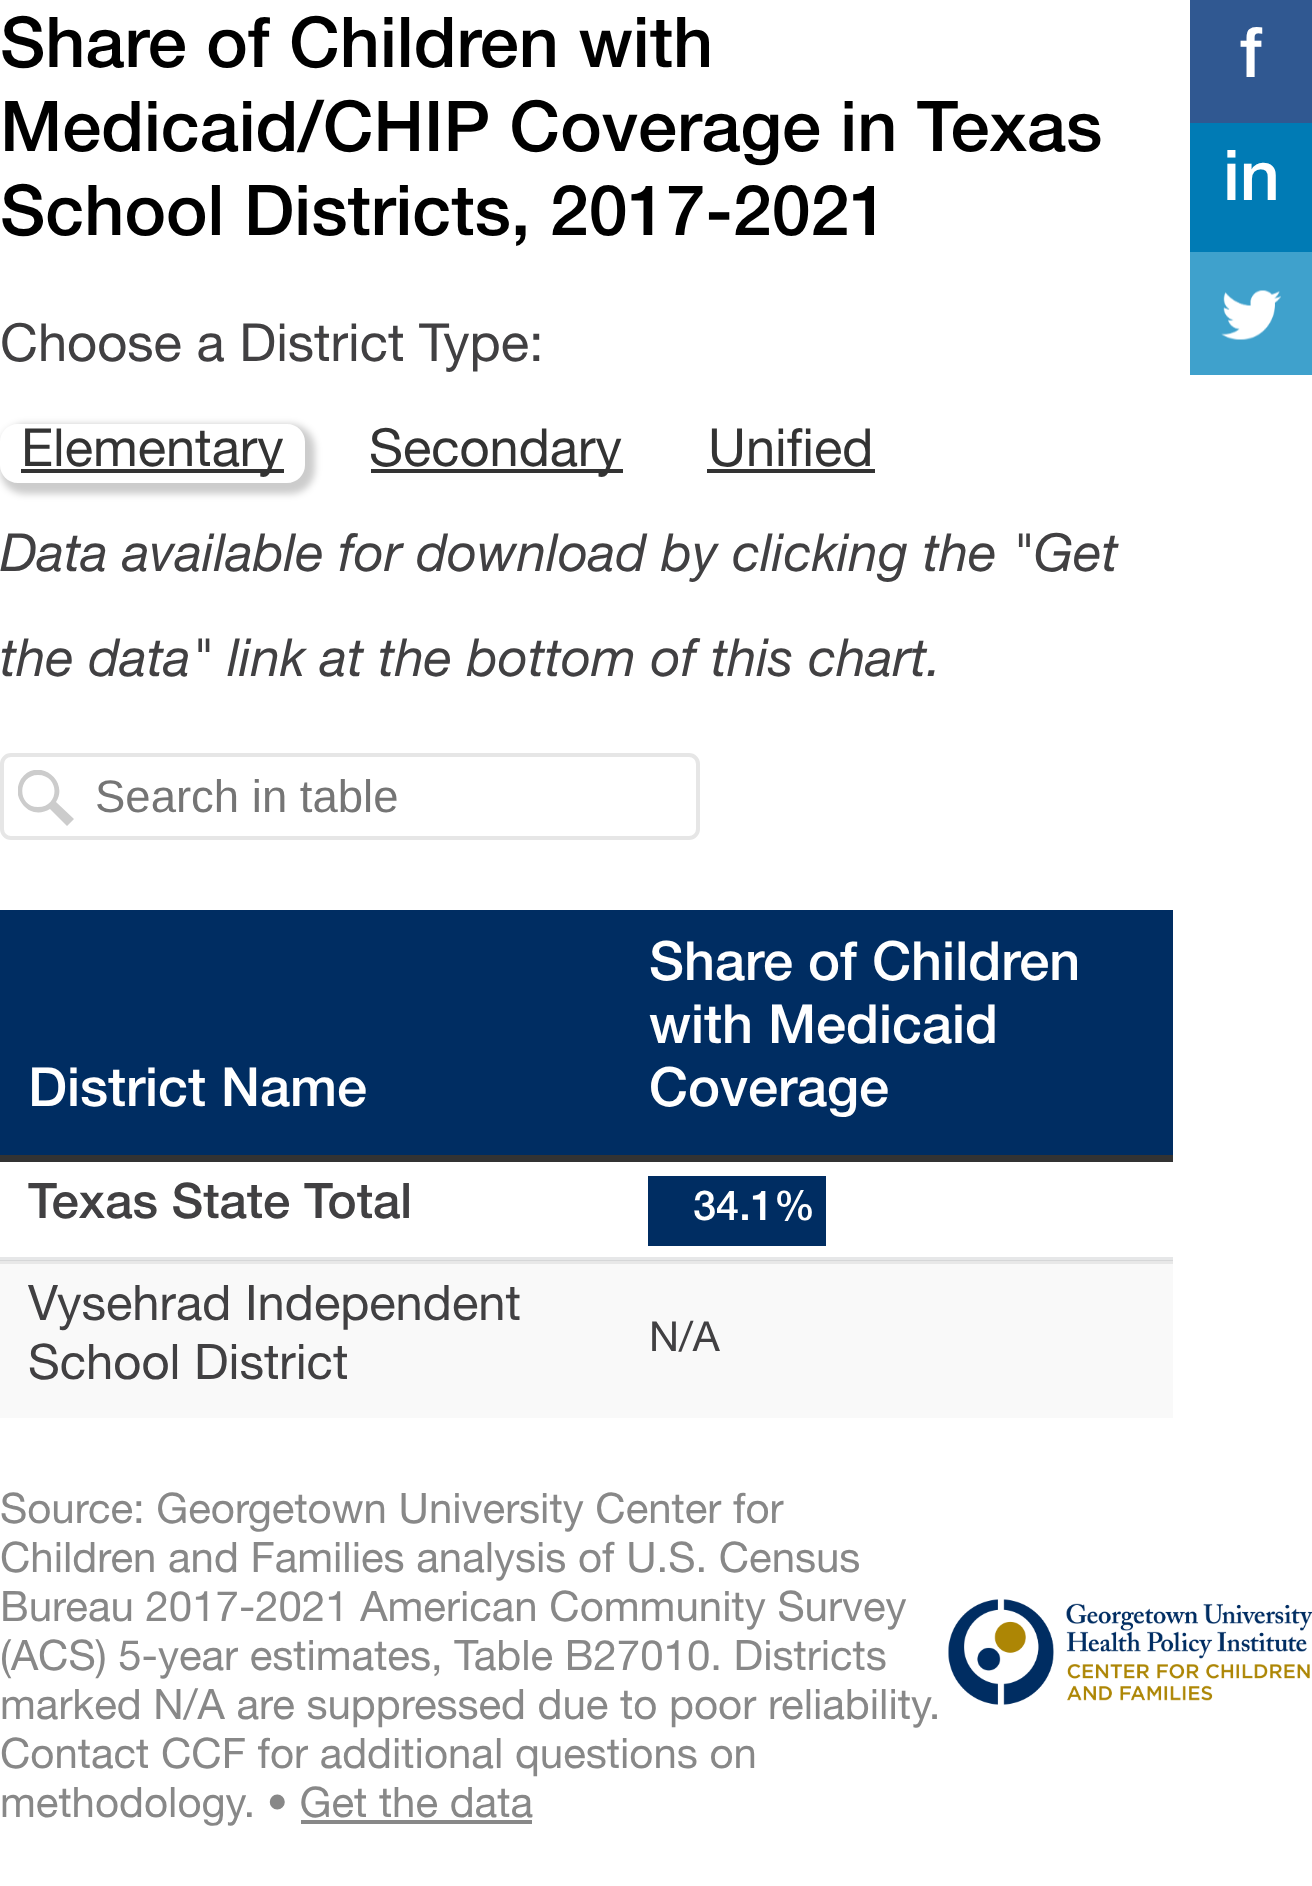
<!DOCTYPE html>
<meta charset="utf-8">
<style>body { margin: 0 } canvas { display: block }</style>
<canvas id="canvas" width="1312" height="1886"></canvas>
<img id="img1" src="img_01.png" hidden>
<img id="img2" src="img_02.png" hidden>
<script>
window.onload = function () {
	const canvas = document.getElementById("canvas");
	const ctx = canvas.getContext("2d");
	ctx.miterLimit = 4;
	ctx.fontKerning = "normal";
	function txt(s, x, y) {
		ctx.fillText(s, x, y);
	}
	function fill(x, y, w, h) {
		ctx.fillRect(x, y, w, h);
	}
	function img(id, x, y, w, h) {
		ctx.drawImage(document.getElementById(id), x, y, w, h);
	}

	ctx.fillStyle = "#FFFFFF";
	fill(0, 0, 1312, 1886);
	ctx.save();
	ctx.beginPath();
	ctx.moveTo(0, 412);
	ctx.lineTo(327, 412);
	ctx.lineTo(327, 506);
	ctx.lineTo(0, 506);
	ctx.closePath();
	ctx.moveTo(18, 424);
	ctx.lineTo(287, 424);
	ctx.bezierCurveTo(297, 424, 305, 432, 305, 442);
	ctx.lineTo(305, 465);
	ctx.bezierCurveTo(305, 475, 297, 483, 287, 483);
	ctx.lineTo(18, 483);
	ctx.bezierCurveTo(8, 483, 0, 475, 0, 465);
	ctx.lineTo(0, 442);
	ctx.bezierCurveTo(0, 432, 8, 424, 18, 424);
	ctx.closePath();
	ctx.clip("evenodd");
	ctx.fillStyle = "rgba(0, 0, 0, 0.2)";
	ctx.filter = "blur(3.5px)";
	ctx.beginPath();
	ctx.roundRect(0, 424, 315, 70, 25);
	ctx.fill();
	ctx.filter = "none";
	ctx.restore();
	ctx.fillStyle = "#333333";
	fill(21, 469, 263, 4);
	fill(371, 469, 252, 4);
	fill(707, 469, 168, 4);
	ctx.fillStyle = "#305891";
	fill(1190, 0, 122, 123);
	ctx.fillStyle = "#007BB5";
	fill(1190, 123, 122, 129);
	ctx.fillStyle = "#3FA1CC";
	fill(1190, 252, 122, 123);
	img("img1", 1221, 290, 60, 50);
	ctx.beginPath();
	ctx.roundRect(2, 755, 696, 83, 9);
	ctx.strokeStyle = "#E6E6E6";
	ctx.lineWidth = 4;
	ctx.stroke();
	ctx.save();
	ctx.beginPath();
	ctx.rect(18, 770, 56, 56);
	ctx.clip();
	ctx.fillStyle = "#CCCCCC";
	ctx.beginPath();
	ctx.moveTo(67, 826);
	ctx.lineTo(50, 809);
	ctx.bezierCurveTo(45, 812, 40, 813, 34, 812);
	ctx.bezierCurveTo(26, 810, 20, 803, 18, 795);
	ctx.bezierCurveTo(17, 790, 18, 784, 21, 779);
	ctx.bezierCurveTo(37, 756, 70, 780, 56, 802);
	ctx.lineTo(74, 819);
	ctx.closePath();
	ctx.moveTo(38, 807);
	ctx.bezierCurveTo(60, 807, 60, 775, 38, 775);
	ctx.bezierCurveTo(17, 775, 17, 807, 38, 807);
	ctx.closePath();
	ctx.fill();
	ctx.restore();
	ctx.fillStyle = "#002D62";
	fill(0, 910, 1173, 245);
	ctx.fillStyle = "#333333";
	fill(0, 1155, 1173, 7);
	ctx.fillStyle = "#E6E7E8";
	fill(0, 1257, 1173, 3);
	ctx.fillStyle = "#D6D7D8";
	fill(0, 1260, 1173, 1);
	ctx.fillStyle = "#002D62";
	fill(648, 1176, 178, 70);
	ctx.fillStyle = "#F9F9F9";
	fill(0, 1264, 1173, 154);
	ctx.fillStyle = "#E8E8E8";
	fill(0, 1261, 1173, 3);
	ctx.fillStyle = "#888888";
	fill(301, 1820, 231, 4);
	img("img2", 948, 1599, 364, 106);
	ctx.font = "500 70px Helvetica Neue";
	ctx.fillStyle = "#000000";
	txt("Share of Children with", 0, 67);
	txt("Medicaid/CHIP Coverage in Texas", 0, 151);
	txt("School Districts, 2017-2021", 0, 235);
	ctx.font = "52.5px Helvetica Neue";
	ctx.fillStyle = "#414042";
	txt("Choose a District Type:", 0, 361);
	ctx.fillStyle = "#333333";
	txt("Elementary", 21, 466);
	txt("Secondary", 369, 466);
	txt("Unified", 708, 466);
	ctx.font = "italic 52.5px Helvetica Neue";
	ctx.fillStyle = "#414042";
	txt("Data available for download by clicking the \"Get", 0, 571);
	txt("the data\" link at the bottom of this chart.", 0, 676);
	ctx.font = "500 70px Helvetica Neue";
	ctx.fillStyle = "#FFFFFF";
	txt("f", 1240, 77);
	txt("in", 1223, 200);
	ctx.font = "45.5px Liberation Sans";
	ctx.fillStyle = "#757575";
	txt("Search in table", 95, 812);
	ctx.font = "500 54px Helvetica Neue";
	ctx.fillStyle = "#FFFFFF";
	txt("District Name", 28, 1106);
	txt("Share of Children", 649, 980);
	txt("with Medicaid", 649, 1043);
	txt("Coverage", 649, 1106);
	ctx.font = "500 49px Helvetica Neue";
	ctx.fillStyle = "#414042";
	txt("Texas State Total", 28, 1218);
	ctx.font = "500 41.5px Helvetica Neue";
	ctx.fillStyle = "#FFFFFF";
	txt("34.1%", 693, 1220);
	ctx.font = "49px Helvetica Neue";
	ctx.fillStyle = "#414042";
	txt("Vysehrad Independent", 28, 1320);
	txt("School District", 28, 1379);
	ctx.font = "41.5px Helvetica Neue";
	txt("N/A", 649, 1351);
	ctx.font = "42px Helvetica Neue";
	ctx.fillStyle = "#888888";
	txt("Source: Georgetown University Center for", 0, 1523);
	txt("Children and Families analysis of U.S. Census", 0, 1572);
	txt("Bureau 2017-2021 American Community Survey", 0, 1621);
	txt("(ACS) 5-year estimates, Table B27010. Districts", 0, 1670);
	txt("marked N/A are suppressed due to poor reliability.", 0, 1719);
	txt("Contact CCF for additional questions on", 0, 1768);
	txt("methodology. • Get the data", 0, 1817);
};
</script>
